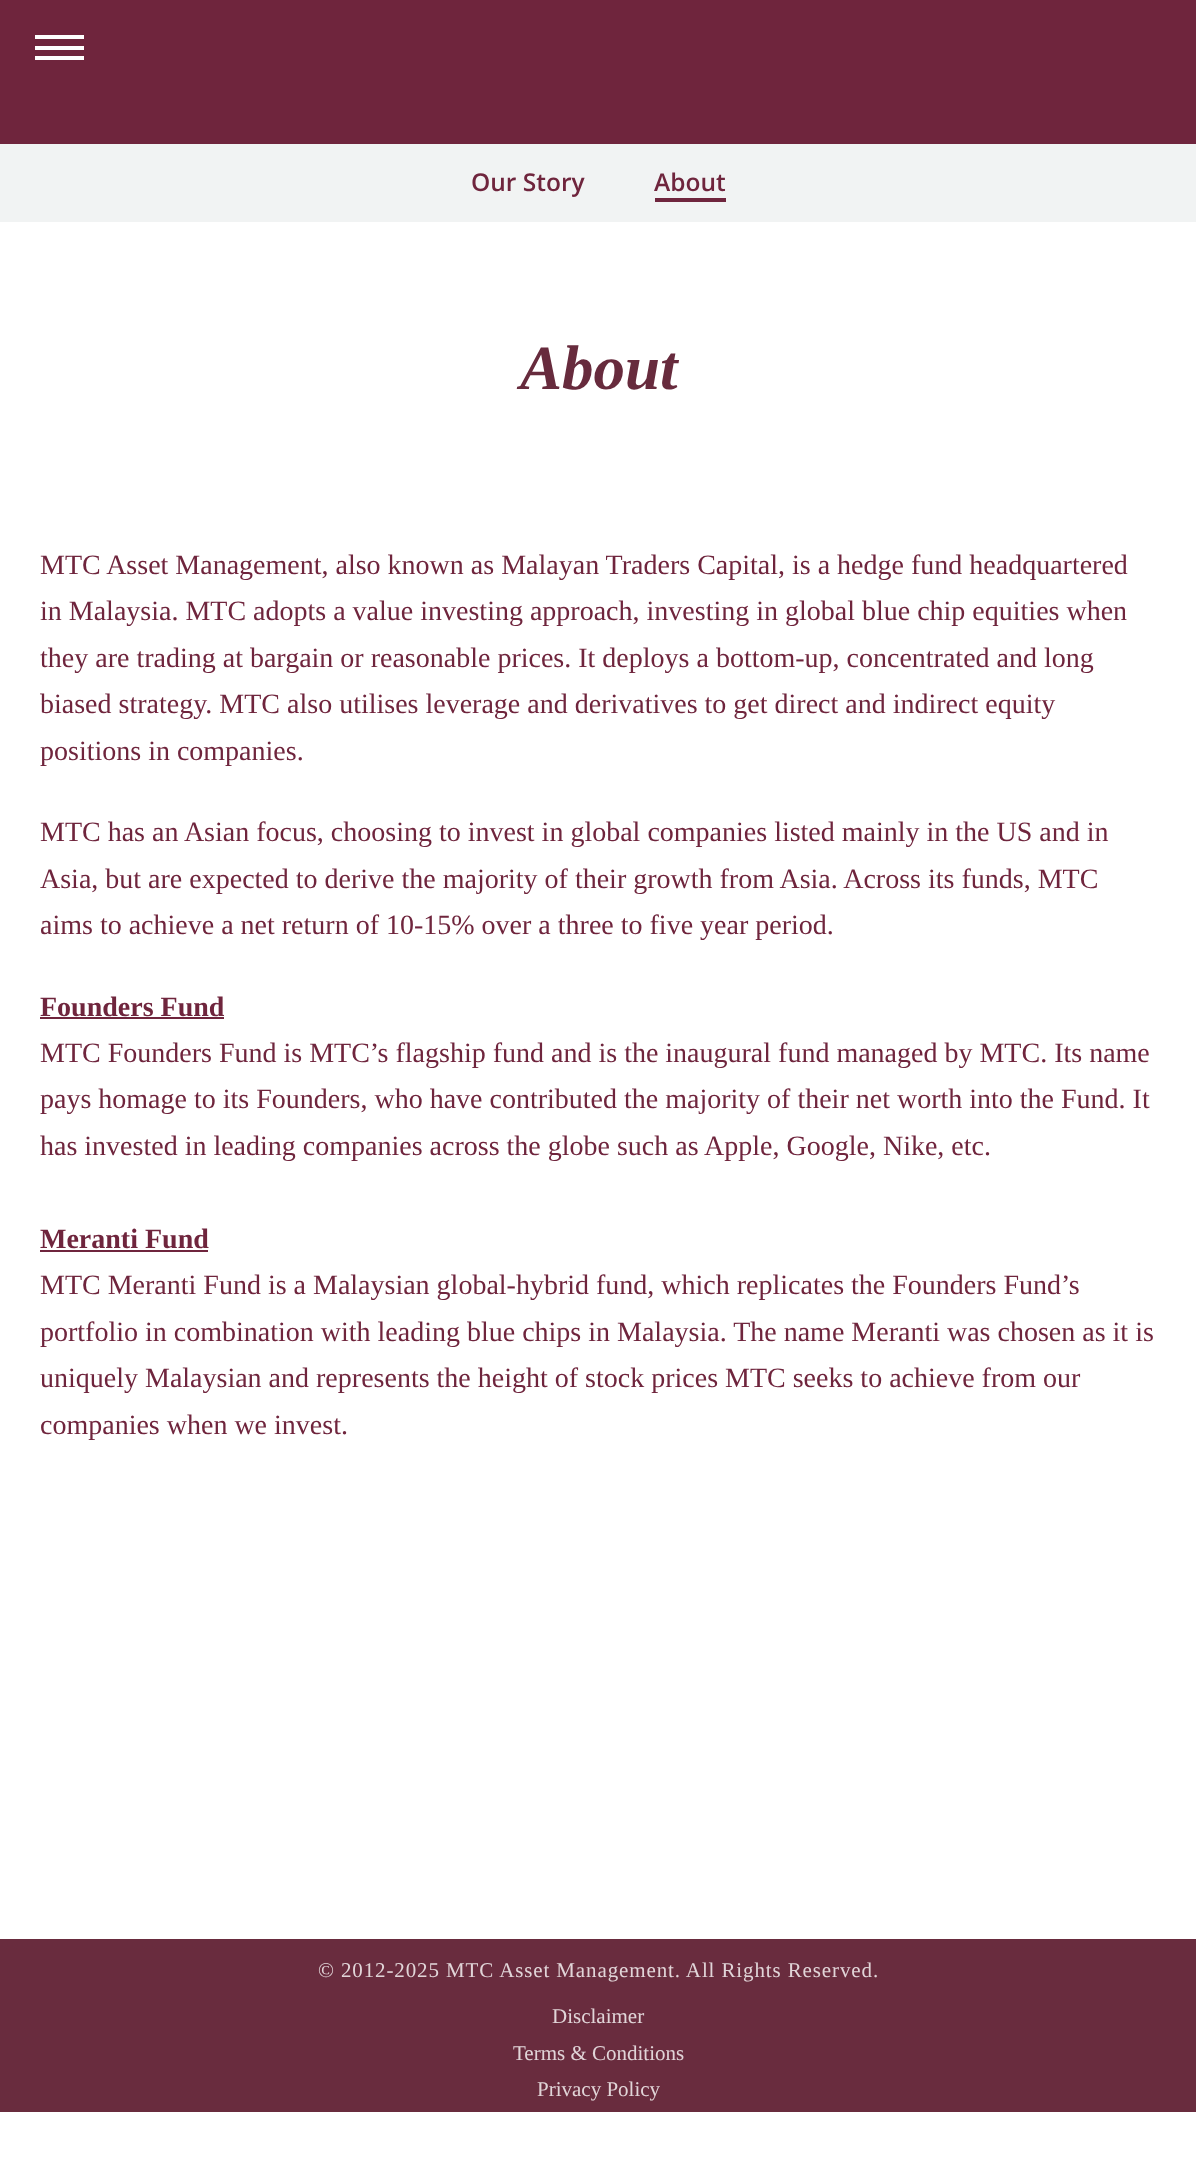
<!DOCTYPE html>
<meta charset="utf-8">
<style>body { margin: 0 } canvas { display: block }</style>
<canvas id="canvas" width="1196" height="2184"></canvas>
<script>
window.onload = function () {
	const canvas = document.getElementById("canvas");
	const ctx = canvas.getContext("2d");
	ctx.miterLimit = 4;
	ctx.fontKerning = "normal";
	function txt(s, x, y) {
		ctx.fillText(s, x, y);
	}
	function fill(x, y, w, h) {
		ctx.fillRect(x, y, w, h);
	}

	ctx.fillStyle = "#FFFFFF";
	fill(0, 0, 1196, 2184);
	ctx.fillStyle = "#6F253D";
	fill(0, 0, 1196, 144);
	ctx.fillStyle = "#FFFFFF";
	fill(35, 46, 49, 4);
	fill(35, 35, 49, 4);
	fill(35, 56, 49, 4);
	ctx.fillStyle = "#F1F3F3";
	fill(0, 144, 1196, 78);
	ctx.fillStyle = "#6F253D";
	fill(655, 198, 71, 4);
	fill(40, 1017, 184, 2);
	fill(40, 1250, 168, 2);
	ctx.fillStyle = "#692C3E";
	fill(0, 1939, 1196, 173);
	ctx.font = "600 24.5px Open Sans";
	ctx.fillStyle = "#6F253D";
	txt("Our Story", 471, 191);
	txt("About", 654, 191);
	ctx.font = "italic bold 63px Liberation Serif";
	ctx.fillStyle = "#672B3D";
	txt("About", 520, 389);
	ctx.font = "28px Liberation Serif";
	ctx.fillStyle = "#6F253D";
	txt("MTC Asset Management, also known as Malayan Traders Capital, is a hedge fund headquartered", 40, 574);
	txt("in Malaysia. MTC adopts a value investing approach, investing in global blue chip equities when", 40, 620);
	txt("they are trading at bargain or reasonable prices. It deploys a bottom-up, concentrated and long", 40, 667);
	txt("biased strategy. MTC also utilises leverage and derivatives to get direct and indirect equity", 40, 713);
	txt("positions in companies.", 40, 760);
	txt("MTC has an Asian focus, choosing to invest in global companies listed mainly in the US and in", 40, 841);
	txt("Asia, but are expected to derive the majority of their growth from Asia. Across its funds, MTC", 40, 888);
	txt("aims to achieve a net return of 10-15% over a three to five year period.", 40, 934);
	ctx.font = "bold 28px Liberation Serif";
	txt("Founders Fund", 40, 1016);
	ctx.font = "28px Liberation Serif";
	txt("MTC Founders Fund is MTC’s flagship fund and is the inaugural fund managed by MTC. Its name", 40, 1062);
	txt("pays homage to its Founders, who have contributed the majority of their net worth into the Fund. It", 40, 1108);
	txt("has invested in leading companies across the globe such as Apple, Google, Nike, etc.", 40, 1155);
	ctx.font = "bold 28px Liberation Serif";
	txt("Meranti Fund", 40, 1248);
	ctx.font = "28px Liberation Serif";
	txt("MTC Meranti Fund is a Malaysian global-hybrid fund, which replicates the Founders Fund’s", 40, 1294);
	txt("portfolio in combination with leading blue chips in Malaysia. The name Meranti was chosen as it is", 40, 1341);
	txt("uniquely Malaysian and represents the height of stock prices MTC seeks to achieve from our", 40, 1387);
	txt("companies when we invest.", 40, 1434);
	ctx.letterSpacing = "0.88px";
	ctx.font = "21px Liberation Serif";
	ctx.fillStyle = "#E1D5D8";
	txt("© 2012-2025 MTC Asset Management. All Rights Reserved.", 318, 1977);
	ctx.letterSpacing = "0px";
	txt("Disclaimer", 552, 2023);
	txt("Terms & Conditions", 513, 2060);
	txt("Privacy Policy", 537, 2096);
};
</script>
